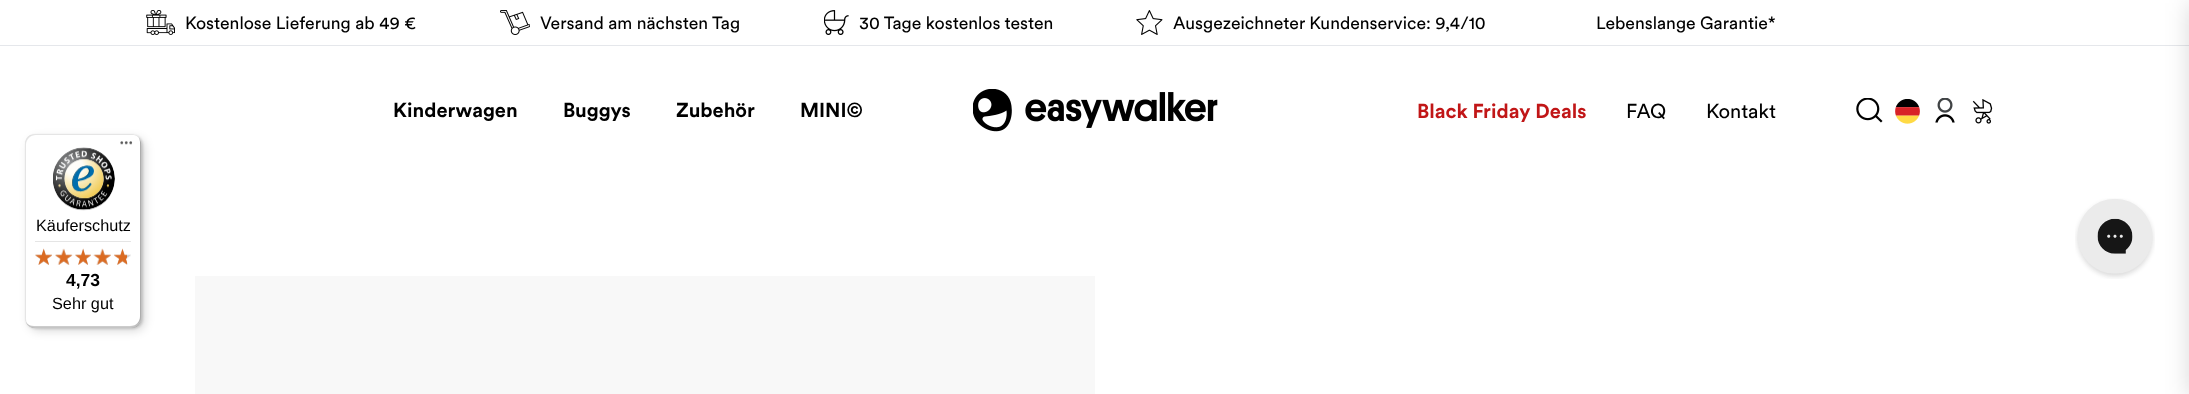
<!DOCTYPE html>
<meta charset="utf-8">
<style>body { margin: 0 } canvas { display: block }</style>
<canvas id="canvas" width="2189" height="394"></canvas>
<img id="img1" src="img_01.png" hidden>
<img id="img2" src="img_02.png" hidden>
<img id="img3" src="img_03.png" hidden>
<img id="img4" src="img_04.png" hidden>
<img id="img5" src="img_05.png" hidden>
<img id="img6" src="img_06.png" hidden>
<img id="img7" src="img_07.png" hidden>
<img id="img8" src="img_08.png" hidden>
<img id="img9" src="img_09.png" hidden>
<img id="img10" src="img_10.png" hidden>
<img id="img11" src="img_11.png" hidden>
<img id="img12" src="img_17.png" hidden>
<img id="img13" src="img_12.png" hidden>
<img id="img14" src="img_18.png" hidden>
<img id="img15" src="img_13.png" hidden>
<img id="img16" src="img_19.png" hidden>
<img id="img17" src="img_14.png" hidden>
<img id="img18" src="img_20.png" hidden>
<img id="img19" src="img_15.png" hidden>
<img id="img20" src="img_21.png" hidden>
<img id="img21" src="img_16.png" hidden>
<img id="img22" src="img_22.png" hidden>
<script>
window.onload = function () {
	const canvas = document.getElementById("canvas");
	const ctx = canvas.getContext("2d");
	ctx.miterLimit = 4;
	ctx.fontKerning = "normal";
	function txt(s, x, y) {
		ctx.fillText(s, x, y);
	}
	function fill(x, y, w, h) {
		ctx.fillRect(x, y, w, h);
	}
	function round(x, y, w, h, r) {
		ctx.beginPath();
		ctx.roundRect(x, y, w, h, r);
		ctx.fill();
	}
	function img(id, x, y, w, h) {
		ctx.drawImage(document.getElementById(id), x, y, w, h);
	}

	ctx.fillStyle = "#FFFFFF";
	fill(0, 0, 2189, 394);
	ctx.fillStyle = "#E5E7EB";
	fill(0, 45, 2189, 1);
	img("img1", 146, 10, 29, 25);
	img("img2", 500, 10, 30, 25);
	img("img3", 824, 10, 25, 25);
	img("img4", 1136, 10, 27, 25);
	ctx.fillStyle = "rgba(0, 0, 0, 0.16)";
	ctx.filter = "blur(12.5px)";
	ctx.beginPath();
	ctx.rect(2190, 3, 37, 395);
	ctx.fill();
	ctx.filter = "none";
	img("img5", 973, 89, 245, 43);
	img("img6", 1856, 98, 27, 25);
	img("img7", 1895, 99, 25, 25);
	img("img8", 1935, 98, 20, 25);
	img("img9", 1972, 99, 21, 25);
	ctx.fillStyle = "rgba(0, 0, 0, 0.15)";
	ctx.filter = "blur(5px)";
	ctx.beginPath();
	ctx.roundRect(29, 138, 116, 193, 10);
	ctx.fill();
	ctx.filter = "none";
	ctx.filter = "blur(1px)";
	ctx.beginPath();
	ctx.roundRect(26, 135, 117, 194, 10);
	ctx.fill();
	ctx.filter = "none";
	ctx.fillStyle = "#FFFFFF";
	round(25, 134, 116, 194, 10);
	ctx.fillStyle = "rgba(0, 0, 0, 0.1)";
	ctx.beginPath();
	ctx.moveTo(36, 135);
	ctx.lineTo(132, 135);
	ctx.bezierCurveTo(134, 135, 136, 135, 137, 136);
	ctx.bezierCurveTo(136, 135, 133, 134, 131, 134);
	ctx.lineTo(35, 134);
	ctx.bezierCurveTo(29, 134, 25, 138, 25, 144);
	ctx.lineTo(25, 318);
	ctx.bezierCurveTo(25, 322, 27, 325, 30, 327);
	ctx.bezierCurveTo(28, 325, 26, 322, 26, 319);
	ctx.lineTo(26, 145);
	ctx.bezierCurveTo(26, 139, 31, 135, 36, 135);
	ctx.closePath();
	ctx.fill();
	ctx.fillStyle = "rgba(0, 0, 0, 0.2)";
	ctx.beginPath();
	ctx.moveTo(26, 322);
	ctx.bezierCurveTo(28, 326, 31, 328, 35, 328);
	ctx.lineTo(131, 328);
	ctx.bezierCurveTo(137, 328, 141, 324, 141, 318);
	ctx.lineTo(141, 144);
	ctx.bezierCurveTo(141, 142, 140, 140, 139, 138);
	ctx.lineTo(140, 142);
	ctx.lineTo(140, 316);
	ctx.bezierCurveTo(140, 322, 136, 326, 130, 326);
	ctx.lineTo(34, 326);
	ctx.bezierCurveTo(31, 326, 28, 325, 26, 322);
	ctx.closePath();
	ctx.fill();
	ctx.fillStyle = "rgba(50, 50, 50, 0.2)";
	ctx.beginPath();
	ctx.moveTo(26, 323);
	ctx.bezierCurveTo(28, 326, 31, 328, 35, 328);
	ctx.lineTo(131, 328);
	ctx.bezierCurveTo(137, 328, 141, 324, 141, 318);
	ctx.lineTo(141, 144);
	ctx.bezierCurveTo(141, 142, 140, 139, 139, 138);
	ctx.bezierCurveTo(140, 139, 140, 141, 140, 143);
	ctx.lineTo(140, 317);
	ctx.bezierCurveTo(140, 322, 136, 327, 130, 327);
	ctx.lineTo(34, 327);
	ctx.bezierCurveTo(31, 327, 28, 325, 26, 323);
	ctx.closePath();
	ctx.fill();
	img("img10", 120, 141, 13, 4);
	ctx.fillStyle = "rgba(255, 255, 255, 0.3)";
	ctx.beginPath();
	ctx.moveTo(26, 323);
	ctx.bezierCurveTo(28, 326, 31, 328, 35, 328);
	ctx.lineTo(131, 328);
	ctx.bezierCurveTo(137, 328, 141, 324, 141, 318);
	ctx.lineTo(141, 317);
	ctx.bezierCurveTo(141, 322, 136, 327, 131, 327);
	ctx.lineTo(34, 327);
	ctx.bezierCurveTo(31, 327, 28, 325, 26, 323);
	ctx.closePath();
	ctx.fill();
	img("img11", 53, 147, 62, 64);
	ctx.fillStyle = "#E5E5E5";
	fill(35, 241, 96, 1);
	img("img12", 35, 249, 17, 16);
	img("img13", 35, 248, 17, 17);
	img("img14", 55, 249, 17, 16);
	img("img15", 55, 248, 18, 17);
	img("img16", 75, 249, 16, 16);
	img("img17", 75, 248, 16, 17);
	img("img18", 93, 249, 18, 16);
	img("img19", 93, 248, 18, 17);
	img("img20", 114, 249, 17, 16);
	img("img21", 114, 248, 13, 17);
	img("img22", 2075, 198, 80, 81);
	ctx.fillStyle = "#F8F8F8";
	fill(195, 276, 900, 118);
	ctx.font = "17.5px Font";
	ctx.fillStyle = "#000000";
	txt("Kostenlose Lieferung ab 49 €", 185, 29);
	txt("Versand am nächsten Tag", 540, 29);
	txt("30 Tage kostenlos testen", 859, 29);
	txt("Ausgezeichneter Kundenservice: 9,4/10", 1173, 29);
	txt("Lebenslange Garantie*", 1596, 29);
	ctx.font = "bold 20px Circular";
	txt("Kinderwagen", 393, 117);
	txt("Buggys", 563, 117);
	txt("Zubehör", 676, 117);
	txt("MINI©", 800, 117);
	ctx.fillStyle = "#C11617";
	txt("Black Friday Deals", 1417, 118);
	ctx.font = "20px Font";
	ctx.fillStyle = "#000000";
	txt("FAQ", 1626, 118);
	txt("Kontakt", 1706, 118);
	ctx.font = "16.25px Liberation Sans";
	txt("Käuferschutz", 36, 231);
	ctx.font = "bold 17.5px Liberation Sans";
	txt("4,73", 66, 286);
	ctx.font = "16.25px Liberation Sans";
	txt("Sehr gut", 52, 309);
};
</script>
